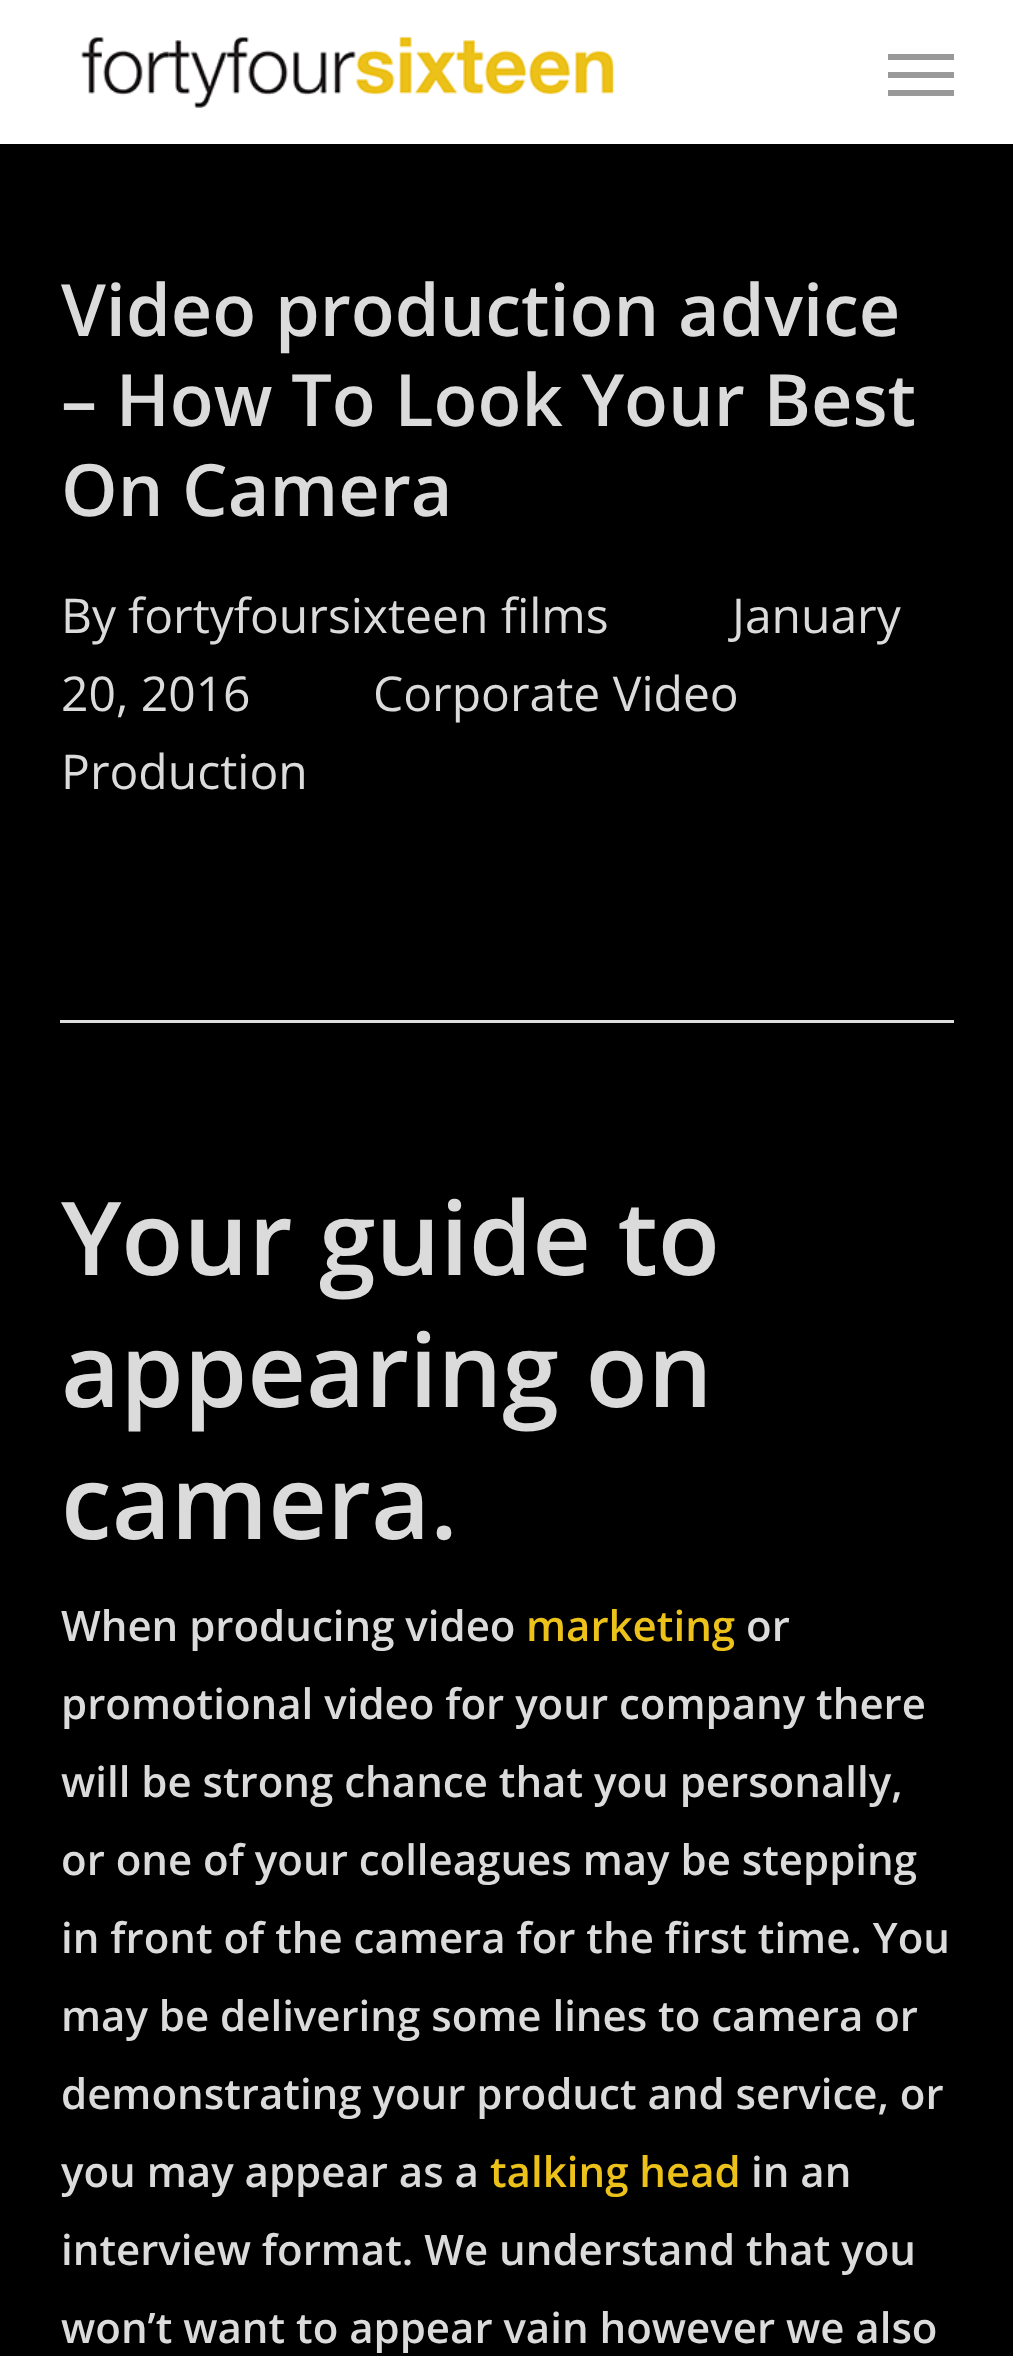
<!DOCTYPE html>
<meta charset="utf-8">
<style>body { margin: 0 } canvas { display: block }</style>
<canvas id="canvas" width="1013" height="2356"></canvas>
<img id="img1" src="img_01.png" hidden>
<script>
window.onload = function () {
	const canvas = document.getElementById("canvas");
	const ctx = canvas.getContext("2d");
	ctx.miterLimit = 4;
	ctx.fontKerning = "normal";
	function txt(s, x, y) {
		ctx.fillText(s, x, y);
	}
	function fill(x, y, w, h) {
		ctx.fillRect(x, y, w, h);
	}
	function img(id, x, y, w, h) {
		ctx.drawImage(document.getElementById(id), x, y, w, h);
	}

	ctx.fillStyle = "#000000";
	fill(0, 0, 1013, 2356);
	ctx.fillStyle = "#FFFFFF";
	fill(0, 0, 1013, 144);
	img("img1", 81, 36, 534, 72);
	ctx.fillStyle = "#999999";
	fill(888, 54, 66, 6);
	fill(888, 90, 66, 6);
	fill(888, 72, 66, 6);
	ctx.fillStyle = "#DDDDDD";
	fill(60, 1020, 894, 3);
	ctx.font = "600 72px Open Sans";
	ctx.fillStyle = "#DBDBDB";
	txt("Video production advice", 61, 336);
	txt("– How To Look Your Best", 61, 426);
	txt("On Camera", 61, 516);
	ctx.font = "48px Open Sans";
	txt("By", 61, 633);
	txt("fortyfoursixteen films", 128, 633);
	txt("January", 732, 633);
	txt("20, 2016", 61, 711);
	txt("Corporate Video", 373, 711);
	txt("Production", 61, 789);
	ctx.font = "600 102px Open Sans";
	txt("Your guide to", 61, 1275);
	txt("appearing on", 61, 1407);
	txt("camera.", 61, 1539);
	ctx.font = "600 42px Open Sans";
	txt("When producing video", 61, 1641);
	ctx.fillStyle = "#ECC119";
	txt("marketing", 526, 1641);
	ctx.fillStyle = "#DBDBDB";
	txt("or", 746, 1641);
	txt("promotional video for your company there", 61, 1719);
	txt("will be strong chance that you personally,", 61, 1797);
	txt("or one of your colleagues may be stepping", 61, 1875);
	txt("in front of the camera for the first time. You", 61, 1953);
	txt("may be delivering some lines to camera or", 61, 2031);
	txt("demonstrating your product and service, or", 61, 2109);
	txt("you may appear as a", 61, 2187);
	ctx.fillStyle = "#ECC119";
	txt("talking head", 490, 2187);
	ctx.fillStyle = "#DBDBDB";
	txt("in an", 751, 2187);
	txt("interview format. We understand that you", 61, 2265);
	txt("won’t want to appear vain however we also", 61, 2343);
};
</script>
